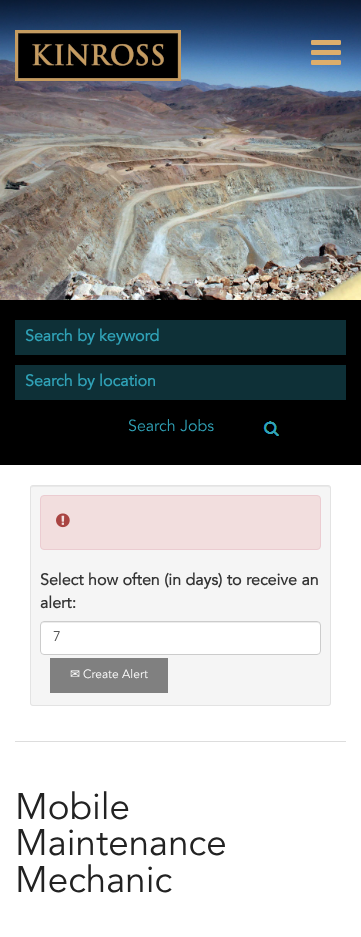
<!DOCTYPE html>
<meta charset="utf-8">
<style>body { margin: 0 } canvas { display: block }</style>
<canvas id="canvas" width="361" height="937"></canvas>
<img id="img1" src="img_03.png" hidden>
<img id="img2" src="img_01.png" hidden>
<img id="img3" src="img_02.png" hidden>
<img id="img4" src="img_04.png" hidden>
<img id="img5" src="img_05.png" hidden>
<script>
window.onload = function () {
	const canvas = document.getElementById("canvas");
	const ctx = canvas.getContext("2d");
	ctx.miterLimit = 4;
	ctx.fontKerning = "normal";
	function txt(s, x, y) {
		ctx.fillText(s, x, y);
	}
	function fill(x, y, w, h) {
		ctx.fillRect(x, y, w, h);
	}
	function round(x, y, w, h, r) {
		ctx.beginPath();
		ctx.roundRect(x, y, w, h, r);
		ctx.fill();
	}
	function img(id, x, y, w, h) {
		ctx.drawImage(document.getElementById(id), x, y, w, h);
	}

	ctx.fillStyle = "#FFFFFF";
	fill(0, 0, 361, 937);
	img("img1", 0, 0, 361, 300);
	img("img2", 15, 30, 166, 51);
	img("img3", 311, 40, 30, 25);
	ctx.fillStyle = "#000000";
	fill(0, 300, 361, 165);
	ctx.fillStyle = "#0E3037";
	fill(15, 320, 331, 35);
	fill(15, 365, 331, 35);
	img("img4", 263, 421, 16, 15);
	ctx.fillStyle = "#F5F5F5";
	round(30, 485, 301, 221, 3);
	ctx.fillStyle = "#E9E9E9";
	ctx.beginPath();
	ctx.moveTo(33, 487);
	ctx.lineTo(328, 487);
	ctx.bezierCurveTo(329, 487, 330, 488, 330, 489);
	ctx.bezierCurveTo(330, 488, 330, 486, 328, 486);
	ctx.lineTo(32, 486);
	ctx.lineTo(31, 489);
	ctx.bezierCurveTo(31, 488, 32, 487, 33, 487);
	ctx.closePath();
	ctx.fill();
	ctx.beginPath();
	ctx.roundRect(30.5, 485.5, 300, 220, 2.5);
	ctx.strokeStyle = "#E3E3E3";
	ctx.stroke();
	ctx.fillStyle = "#F2DEDE";
	ctx.beginPath();
	ctx.roundRect(40.5, 495.5, 280, 54, 3.5);
	ctx.fill();
	ctx.strokeStyle = "#EBCCD1";
	ctx.stroke();
	img("img5", 56, 513, 14, 15);
	ctx.fillStyle = "#FFFFFF";
	round(40, 621, 281, 34, 4);
	ctx.fillStyle = "#ECECEC";
	ctx.beginPath();
	ctx.moveTo(44, 623);
	ctx.lineTo(317, 623);
	ctx.bezierCurveTo(319, 623, 320, 624, 320, 626);
	ctx.lineTo(320, 625);
	ctx.bezierCurveTo(320, 623, 319, 622, 317, 622);
	ctx.lineTo(44, 622);
	ctx.bezierCurveTo(42, 622, 41, 623, 41, 625);
	ctx.lineTo(41, 626);
	ctx.bezierCurveTo(41, 624, 42, 623, 44, 623);
	ctx.closePath();
	ctx.fill();
	ctx.beginPath();
	ctx.roundRect(40.5, 621.5, 280, 33, 3.5);
	ctx.strokeStyle = "#CCCCCC";
	ctx.stroke();
	ctx.fillStyle = "#808080";
	fill(50, 658, 118, 35);
	ctx.fillStyle = "#DDDDDD";
	fill(15, 741, 331, 1);
	ctx.font = "bold 16px Avenir";
	ctx.fillStyle = "#30A2B7";
	txt("Search by keyword", 25, 341);
	txt("Search by location", 25, 386);
	ctx.font = "16px Avenir";
	txt("Search Jobs", 128, 431);
	ctx.font = "bold 16px Avenir";
	ctx.fillStyle = "#333333";
	txt("Select how often (in days) to receive an", 40, 585);
	txt("alert:", 40, 608);
	ctx.font = "14px Avenir";
	ctx.fillStyle = "#555555";
	txt("7", 53, 641);
	ctx.font = "12px DejaVu Sans";
	ctx.fillStyle = "#FFFFFF";
	txt("✉", 70, 678);
	ctx.font = "12px Avenir";
	txt("Create Alert", 83, 678);
	ctx.font = "36.75px Avenir";
	ctx.fillStyle = "#222222";
	txt("Mobile", 15, 819);
	txt("Maintenance", 15, 855);
	txt("Mechanic", 15, 892);
};
</script>
